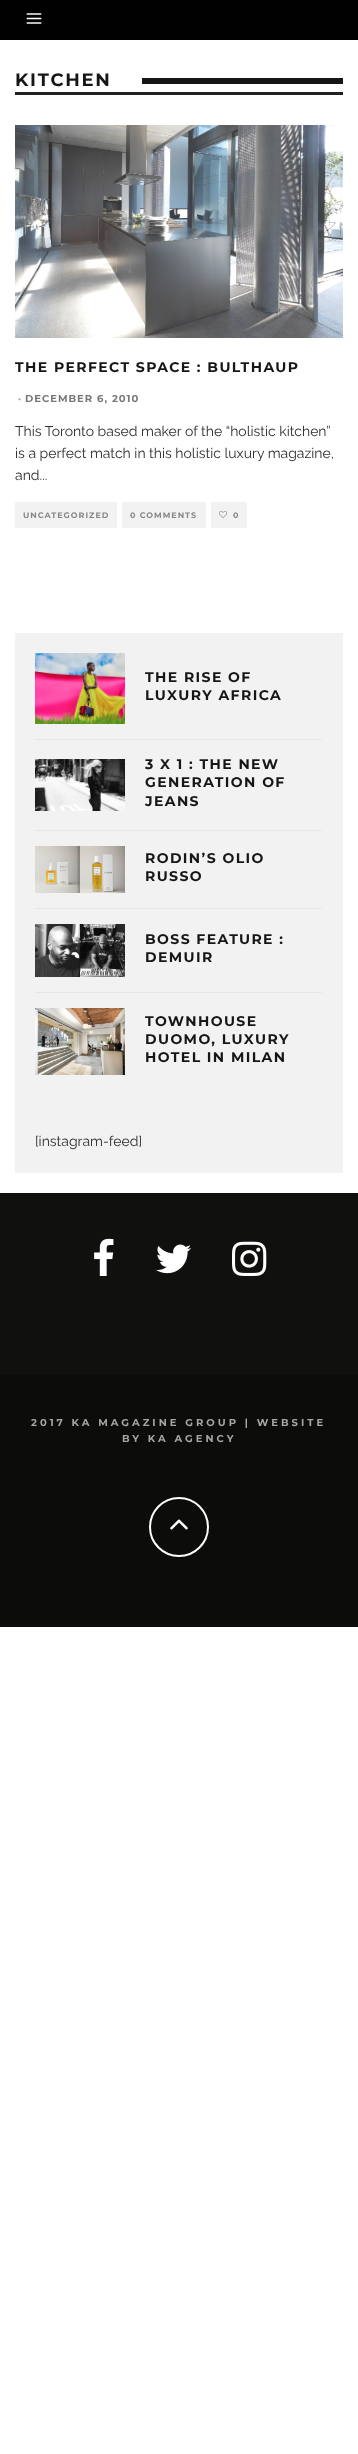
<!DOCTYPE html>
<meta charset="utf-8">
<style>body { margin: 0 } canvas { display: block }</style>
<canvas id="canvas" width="358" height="2454"></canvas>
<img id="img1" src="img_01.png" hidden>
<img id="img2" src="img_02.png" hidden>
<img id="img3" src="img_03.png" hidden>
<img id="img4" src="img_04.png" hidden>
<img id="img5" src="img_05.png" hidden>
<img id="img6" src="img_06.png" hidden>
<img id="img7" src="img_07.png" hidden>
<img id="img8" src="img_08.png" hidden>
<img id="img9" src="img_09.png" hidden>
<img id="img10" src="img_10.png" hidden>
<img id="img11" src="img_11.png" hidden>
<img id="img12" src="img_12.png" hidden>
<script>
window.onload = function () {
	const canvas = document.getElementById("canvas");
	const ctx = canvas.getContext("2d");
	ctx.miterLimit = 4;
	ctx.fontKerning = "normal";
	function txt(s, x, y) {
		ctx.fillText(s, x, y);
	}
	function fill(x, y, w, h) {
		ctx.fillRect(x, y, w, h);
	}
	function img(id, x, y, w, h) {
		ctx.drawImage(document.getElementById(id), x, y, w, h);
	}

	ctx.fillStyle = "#FFFFFF";
	fill(0, 0, 358, 2454);
	ctx.fillStyle = "#010101";
	fill(0, 0, 358, 40);
	img("img1", 26, 13, 16, 11);
	ctx.fillStyle = "#222222";
	fill(15, 92, 328, 3);
	ctx.fillStyle = "#161616";
	fill(142, 78, 201, 6);
	img("img2", 15, 125, 328, 213);
	ctx.fillStyle = "#F2F2F2";
	fill(15, 502, 102, 26);
	fill(122, 502, 84, 26);
	fill(211, 502, 36, 26);
	img("img3", 219, 511, 8, 7);
	fill(15, 633, 328, 540);
	ctx.beginPath();
	ctx.moveTo(35, 739.5);
	ctx.lineTo(323, 739.5);
	ctx.strokeStyle = "#DDDDDD";
	ctx.setLineDash([1, 1]);
	ctx.stroke();
	img("img4", 35, 653, 90, 71);
	ctx.beginPath();
	ctx.moveTo(35, 830.5);
	ctx.lineTo(323, 830.5);
	ctx.stroke();
	img("img5", 35, 759, 90, 52);
	ctx.beginPath();
	ctx.moveTo(35, 908.5);
	ctx.lineTo(323, 908.5);
	ctx.stroke();
	img("img6", 35, 846, 90, 47);
	ctx.beginPath();
	ctx.moveTo(35, 992.5);
	ctx.lineTo(323, 992.5);
	ctx.stroke();
	img("img7", 35, 924, 90, 53);
	img("img8", 35, 1008, 90, 67);
	ctx.fillStyle = "#10100F";
	fill(0, 1193, 358, 182);
	img("img9", 94, 1238, 20, 38);
	img("img10", 156, 1244, 35, 30);
	img("img11", 232, 1241, 35, 35);
	ctx.fillStyle = "#0C0C0B";
	fill(0, 1375, 358, 252);
	ctx.beginPath();
	ctx.arc(179, 1527, 29, 0, Math.PI * 2);
	ctx.strokeStyle = "#FFFFFF";
	ctx.lineWidth = 2;
	ctx.setLineDash([]);
	ctx.stroke();
	img("img12", 170, 1519, 18, 11);
	ctx.letterSpacing = "1.75px";
	ctx.font = "bold 18px Montserrat";
	ctx.fillStyle = "#161616";
	txt("KITCHEN", 15, 86);
	ctx.letterSpacing = "1.4px";
	ctx.font = "bold 14px Montserrat";
	txt("THE PERFECT SPACE : BULTHAUP", 15, 372);
	ctx.letterSpacing = "1px";
	ctx.font = "bold 10px Montserrat";
	ctx.fillStyle = "#A0A0A0";
	txt("·", 18, 402);
	ctx.fillStyle = "#777777";
	txt("DECEMBER 6, 2010", 25, 402);
	ctx.letterSpacing = "0px";
	ctx.font = "14px Raleway";
	ctx.fillStyle = "#2E2E2E";
	txt("This Toronto based maker of the “holistic kitchen”", 15, 436);
	txt("is a perfect match in this holistic luxury magazine,", 15, 458);
	txt("and...", 15, 480);
	ctx.letterSpacing = "1px";
	ctx.font = "bold 8px Montserrat";
	ctx.fillStyle = "#868686";
	txt("UNCATEGORIZED", 23, 518);
	txt("0 COMMENTS", 130, 518);
	txt("0", 233, 518);
	ctx.letterSpacing = "1.4px";
	ctx.font = "bold 14px Montserrat";
	ctx.fillStyle = "#161616";
	txt("THE RISE OF", 145, 682);
	txt("LUXURY AFRICA", 145, 700);
	txt("3 X 1 : THE NEW", 145, 769);
	txt("GENERATION OF", 145, 787);
	txt("JEANS", 145, 806);
	txt("RODIN’S OLIO", 145, 863);
	txt("RUSSO", 145, 881);
	txt("BOSS FEATURE :", 145, 944);
	txt("DEMUIR", 145, 962);
	txt("TOWNHOUSE", 145, 1026);
	txt("DUOMO, LUXURY", 145, 1044);
	txt("HOTEL IN MILAN", 145, 1062);
	ctx.letterSpacing = "0px";
	ctx.font = "14px Raleway";
	ctx.fillStyle = "#2E2E2E";
	txt("[instagram-feed]", 35, 1146);
	ctx.letterSpacing = "3px";
	ctx.font = "bold 10px Montserrat";
	ctx.fillStyle = "#A6A6A6";
	txt("2017 KA MAGAZINE GROUP | WEBSITE", 31, 1426);
	txt("BY KA AGENCY", 122, 1442);
};
</script>
